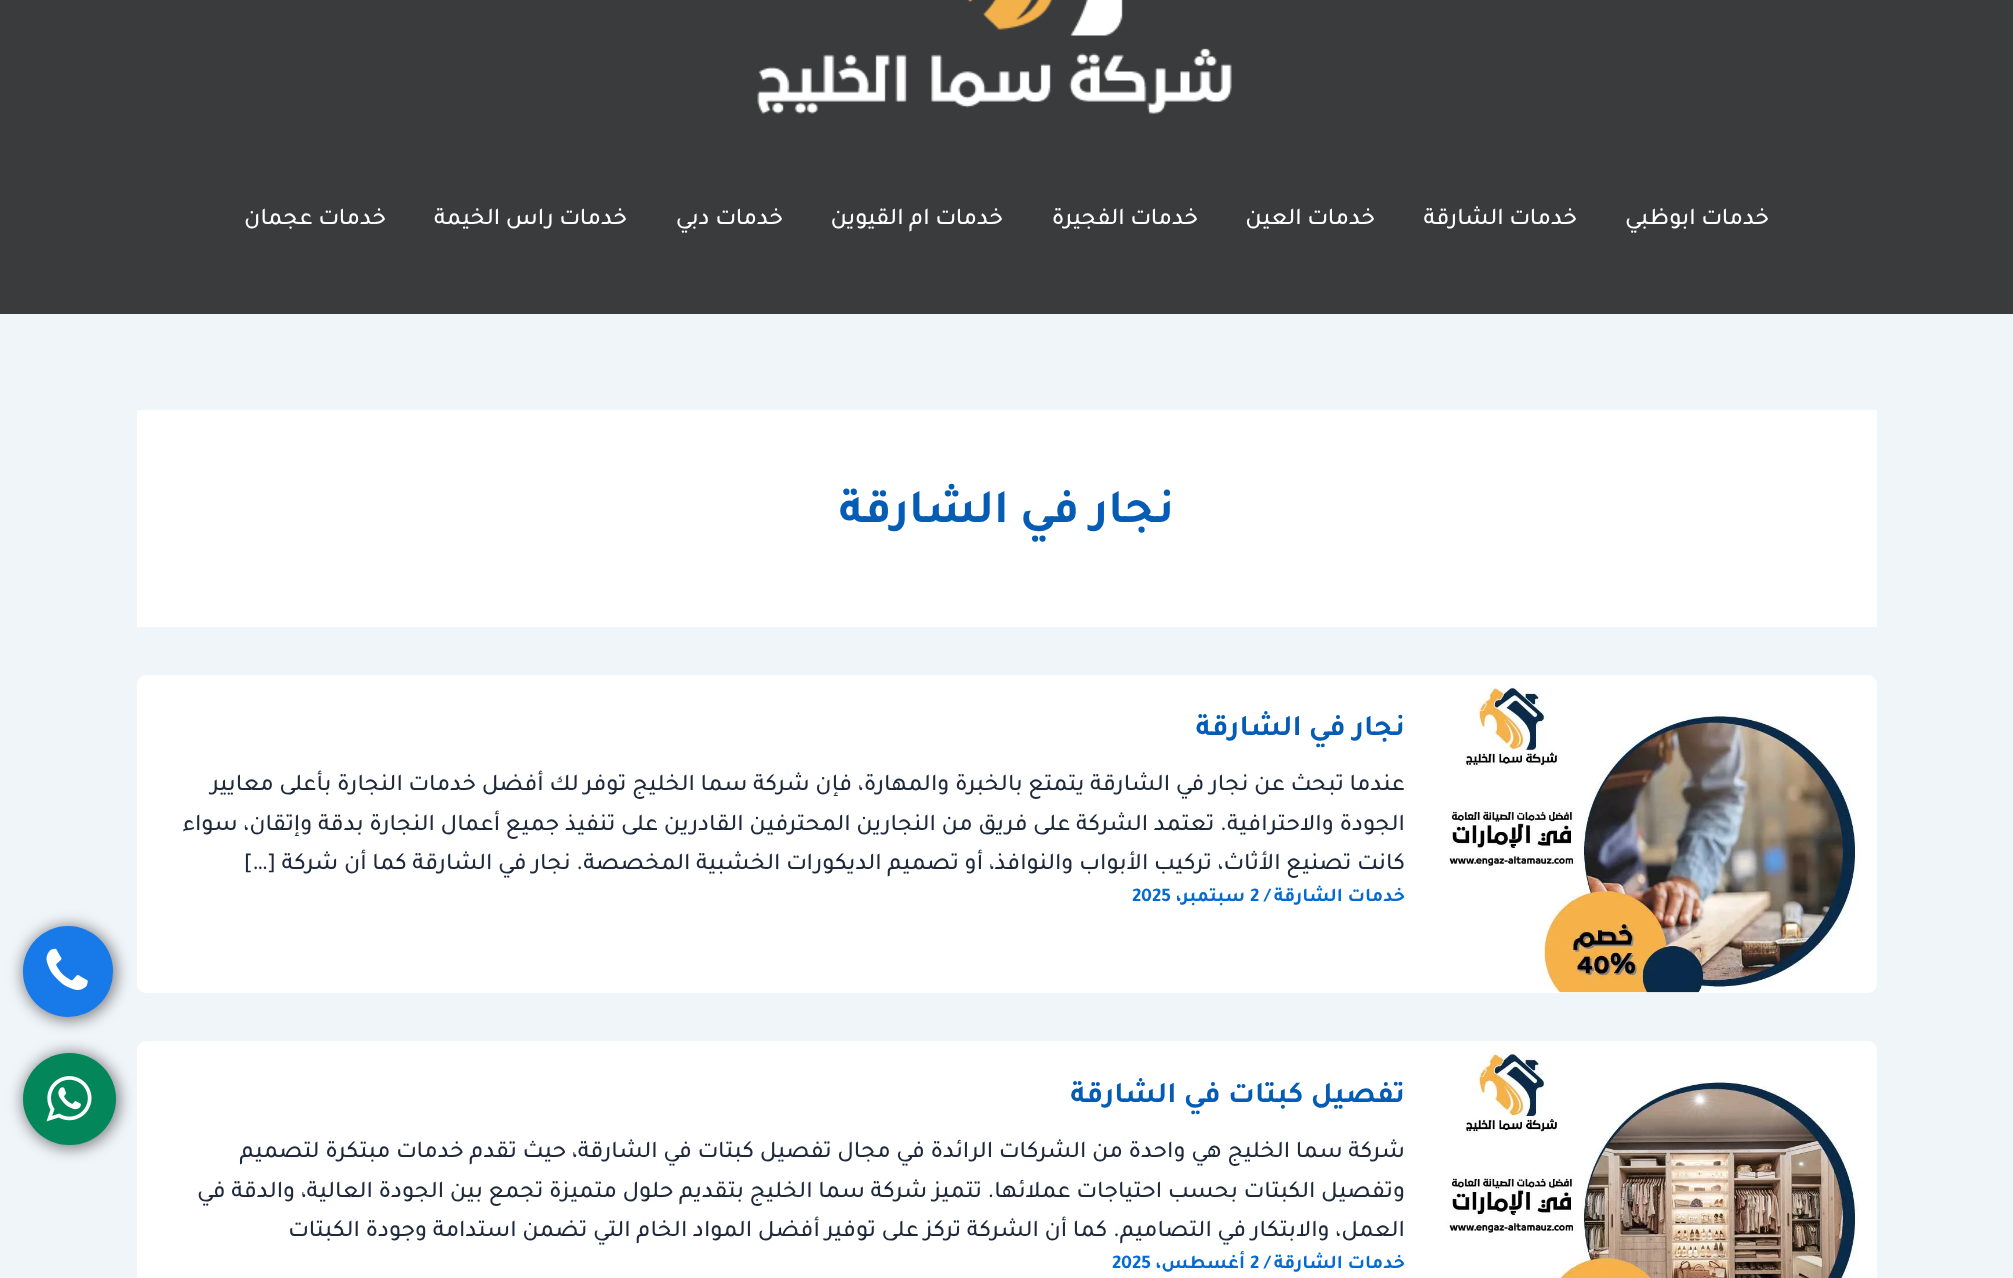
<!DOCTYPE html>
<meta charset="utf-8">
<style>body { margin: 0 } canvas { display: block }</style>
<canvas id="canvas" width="2013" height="1278"></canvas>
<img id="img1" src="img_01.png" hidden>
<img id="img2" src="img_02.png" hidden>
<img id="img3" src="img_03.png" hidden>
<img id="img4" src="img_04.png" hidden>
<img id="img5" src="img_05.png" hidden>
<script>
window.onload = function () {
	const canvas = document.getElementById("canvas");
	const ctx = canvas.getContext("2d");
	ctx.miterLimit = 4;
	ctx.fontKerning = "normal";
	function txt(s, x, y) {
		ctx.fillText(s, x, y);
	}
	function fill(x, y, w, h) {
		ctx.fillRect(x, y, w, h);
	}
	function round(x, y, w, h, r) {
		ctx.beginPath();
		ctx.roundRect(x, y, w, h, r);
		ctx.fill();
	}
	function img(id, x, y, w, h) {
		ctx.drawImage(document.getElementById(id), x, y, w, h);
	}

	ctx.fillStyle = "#F0F5FA";
	fill(0, 0, 2013, 1278);
	ctx.fillStyle = "#3A3B3C";
	fill(0, 0, 2013, 314);
	img("img1", 757, 0, 475, 114);
	ctx.fillStyle = "#FFFFFF";
	fill(137, 410, 1740, 217);
	round(137, 675, 1740, 318, 9);
	img("img2", 1448, 675, 423, 318);
	round(137, 1041, 1740, 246, 9);
	img("img3", 1446, 1041, 425, 237);
	ctx.fillStyle = "rgba(0, 0, 0, 0.5)";
	ctx.filter = "blur(7.5px)";
	ctx.beginPath();
	ctx.roundRect(23, 926, 93, 94, 46.5);
	ctx.fill();
	ctx.filter = "none";
	ctx.fillStyle = "#187AE8";
	round(23, 926, 90, 91, 45);
	img("img4", 46, 948, 42, 42);
	ctx.fillStyle = "rgba(0, 0, 0, 0.5)";
	ctx.filter = "blur(7.5px)";
	ctx.beginPath();
	ctx.roundRect(23, 1053, 96, 95, 47.5);
	ctx.fill();
	ctx.filter = "none";
	ctx.fillStyle = "#04865B";
	round(23, 1053, 93, 92, 46);
	img("img5", 46, 1076, 46, 46);
	ctx.direction = "rtl";
	ctx.font = "500 24px Tajawal";
	ctx.fillStyle = "#FFFFFF";
	txt("خدمات ابوظبي", 1769, 224);
	txt("خدمات الشارقة", 1577, 224);
	txt("خدمات العين", 1375, 224);
	txt("خدمات الفجيرة", 1198, 224);
	txt("خدمات ام القيوين", 1003, 224);
	txt("خدمات دبي", 783, 224);
	txt("خدمات راس الخيمة", 627, 224);
	txt("خدمات عجمان", 386, 224);
	ctx.font = "bold 48px Tajawal";
	ctx.fillStyle = "#045CB4";
	txt("نجار في الشارقة", 1174, 522);
	ctx.font = "bold 30px Tajawal";
	txt("نجار في الشارقة", 1405, 735);
	ctx.font = "500 24px Tajawal";
	ctx.fillStyle = "#1E293B";
	txt("عندما تبحث عن نجار في الشارقة يتمتع بالخبرة والمهارة، فإن شركة سما الخليج توفر لك أفضل خدمات النجارة بأعلى معايير", 1405, 790);
	txt("الجودة والاحترافية. تعتمد الشركة على فريق من النجارين المحترفين القادرين على تنفيذ جميع أعمال النجارة بدقة وإتقان، سواء", 1405, 830);
	txt("كانت تصنيع الأثاث، تركيب الأبواب والنوافذ، أو تصميم الديكورات الخشبية المخصصة. نجار في الشارقة كما أن شركة […]", 1405, 869);
	ctx.font = "bold 19.5px Tajawal";
	ctx.fillStyle = "#046BD2";
	txt("خدمات الشارقة", 1405, 901);
	ctx.direction = "ltr";
	txt("/", 1264, 901);
	txt("2", 1250, 901);
	ctx.direction = "rtl";
	txt("سبتمبر،", 1245, 901);
	ctx.direction = "ltr";
	txt("2025", 1132, 901);
	ctx.direction = "rtl";
	ctx.font = "bold 30px Tajawal";
	ctx.fillStyle = "#045CB4";
	txt("تفصيل كبتات في الشارقة", 1405, 1102);
	ctx.font = "500 24px Tajawal";
	ctx.fillStyle = "#1E293B";
	txt("شركة سما الخليج هي واحدة من الشركات الرائدة في مجال تفصيل كبتات في الشارقة، حيث تقدم خدمات مبتكرة لتصميم", 1405, 1157);
	txt("وتفصيل الكبتات بحسب احتياجات عملائها. تتميز شركة سما الخليج بتقديم حلول متميزة تجمع بين الجودة العالية، والدقة في", 1405, 1197);
	txt("العمل، والابتكار في التصاميم. كما أن الشركة تركز على توفير أفضل المواد الخام التي تضمن استدامة وجودة الكبتات", 1405, 1236);
	ctx.font = "bold 19.5px Tajawal";
	ctx.fillStyle = "#046BD2";
	txt("خدمات الشارقة", 1405, 1268);
	ctx.direction = "ltr";
	txt("/", 1264, 1268);
	txt("2", 1250, 1268);
	ctx.direction = "rtl";
	txt("أغسطس،", 1245, 1268);
	ctx.direction = "ltr";
	txt("2025", 1112, 1268);
};
</script>
